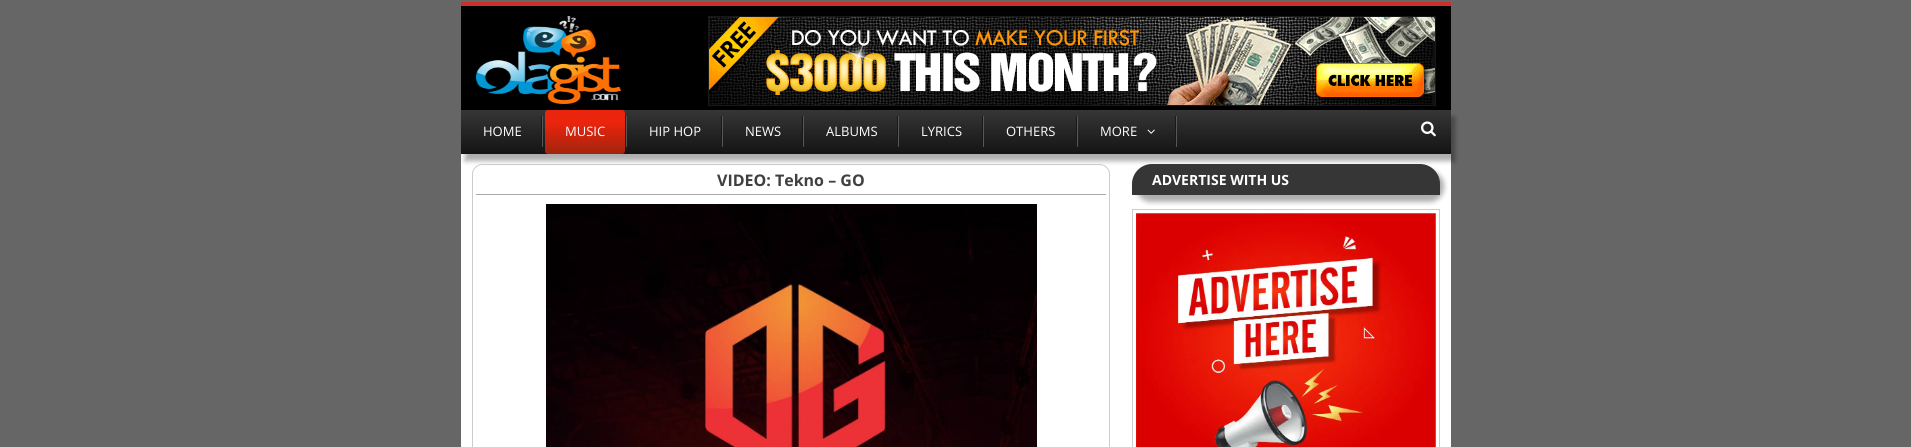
import math
import cairo

surface = cairo.ImageSurface(cairo.Format.RGB24, 1911, 447)
ctx = cairo.Context(surface)
options = cairo.FontOptions()
options.set_hint_metrics(cairo.HintMetrics.OFF)
options.set_hint_style(cairo.HintStyle.NONE)
ctx.set_font_options(options)
ctx.set_miter_limit(4)


def ink(r, g, b):
    ctx.set_source_rgb(r / 255, g / 255, b / 255)


def write(x, y, s, family, size, color, bold=False, italic=False):
    ctx.select_font_face(family, cairo.FontSlant.ITALIC if italic else cairo.FontSlant.NORMAL, cairo.FontWeight.BOLD if bold else cairo.FontWeight.NORMAL)
    ctx.set_font_size(size)
    ink(*color)
    ctx.move_to(x, y)
    ctx.show_text(s)


def block(x, y, w, h, *color):
    ink(*color)
    ctx.rectangle(x, y, w, h)
    ctx.fill()


def round_path(x, y, w, h, r):
    ctx.new_sub_path()
    for i, (u, v) in enumerate([(x + w - r, y + h - r), (x + r, y + h - r), (x + r, y + r), (x + w - r, y + r)]):
        ctx.arc(u, v, r, i * math.pi / 2, (i + 1) * math.pi / 2)
    ctx.close_path()


def blur_box(x, y, w, h, r, blur, alpha):
    ctx.push_group_with_content(cairo.Content.ALPHA)
    ctx.set_operator(cairo.Operator.SOURCE)
    for i in range(15, -16, -2):
        e = blur * i / 6
        if min(w, h) + 2 * e > 0:
            ctx.set_source_rgba(0, 0, 0, alpha * math.erfc((i - 1) / 8.5) / 2)
            round_path(x - e, y - e, w + 2 * e, h + 2 * e, max(0, min(r + e + blur * .6, min(w, h) / 2 + e)))
            ctx.fill()
    ctx.mask(ctx.pop_group())


def paste(path, x, y, w, h):
    ctx.save()
    ctx.set_source_surface(cairo.ImageSurface.create_from_png(path), x, y)
    ctx.rectangle(x, y, w, h)
    ctx.fill()
    ctx.restore()


s1 = dict(family="Open Sans", size=13, color=(255, 255, 255))
s2 = dict(family="Open Sans", size=16, color=(64, 64, 64), bold=True)
s3 = dict(family="Open Sans", size=14, color=(255, 255, 255), bold=True)

ink(102, 102, 102)
ctx.paint()
block(461, 6, 990, 104, 0, 0, 0)
block(461, 2, 990, 4, 203, 49, 42)
paste("pic1.png", 476, 16, 145, 88)
paste("pic2.png", 708, 16, 728, 90)
block(461, 154, 990, 293, 255, 255, 255)
ink(0, 0, 0)
blur_box(465, 117, 990, 44, 0, 2.5, 0.32)
gradient = cairo.LinearGradient(956, 110, 956, 154)
gradient.add_color_stop_rgba(0, 0.216, 0.212, 0.212, 1)
gradient.add_color_stop_rgba(1, 0.078, 0.078, 0.078, 1)
ctx.set_source(gradient)
ctx.rectangle(461, 110, 990, 44)
ctx.fill()
paste("pic3.png", 541, 116, 2, 31)
write(483, 136, "HOME", **s1)
paste("pic3.png", 625, 116, 2, 31)
gradient = cairo.LinearGradient(585, 110, 585, 154)
gradient.add_color_stop_rgba(0.3, 0.918, 0.141, 0.051, 1)
gradient.add_color_stop_rgba(1, 0.635, 0.141, 0.051, 1)
ctx.set_source(gradient)
round_path(545, 110, 80, 44, 3)
ctx.fill()
write(565, 136, "MUSIC", **s1)
paste("pic3.png", 721, 116, 2, 31)
write(649, 136, "HIP HOP", **s1)
paste("pic3.png", 802, 116, 2, 31)
write(745, 136, "NEWS", **s1)
paste("pic3.png", 897, 116, 2, 31)
write(826, 136, "ALBUMS", **s1)
paste("pic3.png", 982, 116, 2, 31)
write(921, 136, "LYRICS", **s1)
paste("pic3.png", 1076, 116, 2, 31)
write(1006, 136, "OTHERS", **s1)
paste("pic3.png", 1175, 116, 2, 31)
write(1100, 136, "MORE", **s1)
paste("pic4.png", 1147, 129, 8, 5)
paste("pic5.png", 1421, 121, 15, 16)
ctx.new_path()
ctx.move_to(482, 164.5)
ctx.line_to(1100, 164.5)
ctx.curve_to(1105, 164.5, 1109.5, 169, 1109.5, 174)
ctx.line_to(1109.5, 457.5)
ctx.line_to(472.5, 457.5)
ctx.line_to(472.5, 174)
ctx.curve_to(472.5, 169, 477, 164.5, 482, 164.5)
ctx.close_path()
ink(204, 204, 204)
ctx.set_line_width(1)
ctx.stroke()
write(717, 186, "VIDEO: Tekno – GO", **s2)
block(476, 194, 630, 1, 170, 170, 170)
paste("pic6.png", 546, 204, 491, 243)
ink(0, 0, 0)
blur_box(1136, 171, 308, 31, 20, 2.5, 0.32)
ink(55, 54, 54)
ctx.new_path()
ctx.move_to(1152, 164)
ctx.line_to(1420, 164)
ctx.curve_to(1431, 164, 1440, 173, 1440, 184)
ctx.line_to(1440, 195)
ctx.line_to(1132, 195)
ctx.line_to(1132, 184)
ctx.curve_to(1132, 173, 1141, 164, 1152, 164)
ctx.close_path()
ctx.fill()
write(1152, 185, "ADVERTISE WITH US", **s3)
ctx.rectangle(1132.5, 209.5, 307, 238)
ink(204, 204, 204)
ctx.stroke()
paste("pic7.png", 1136, 213, 300, 234)
surface.write_to_png("screenshot.png")
